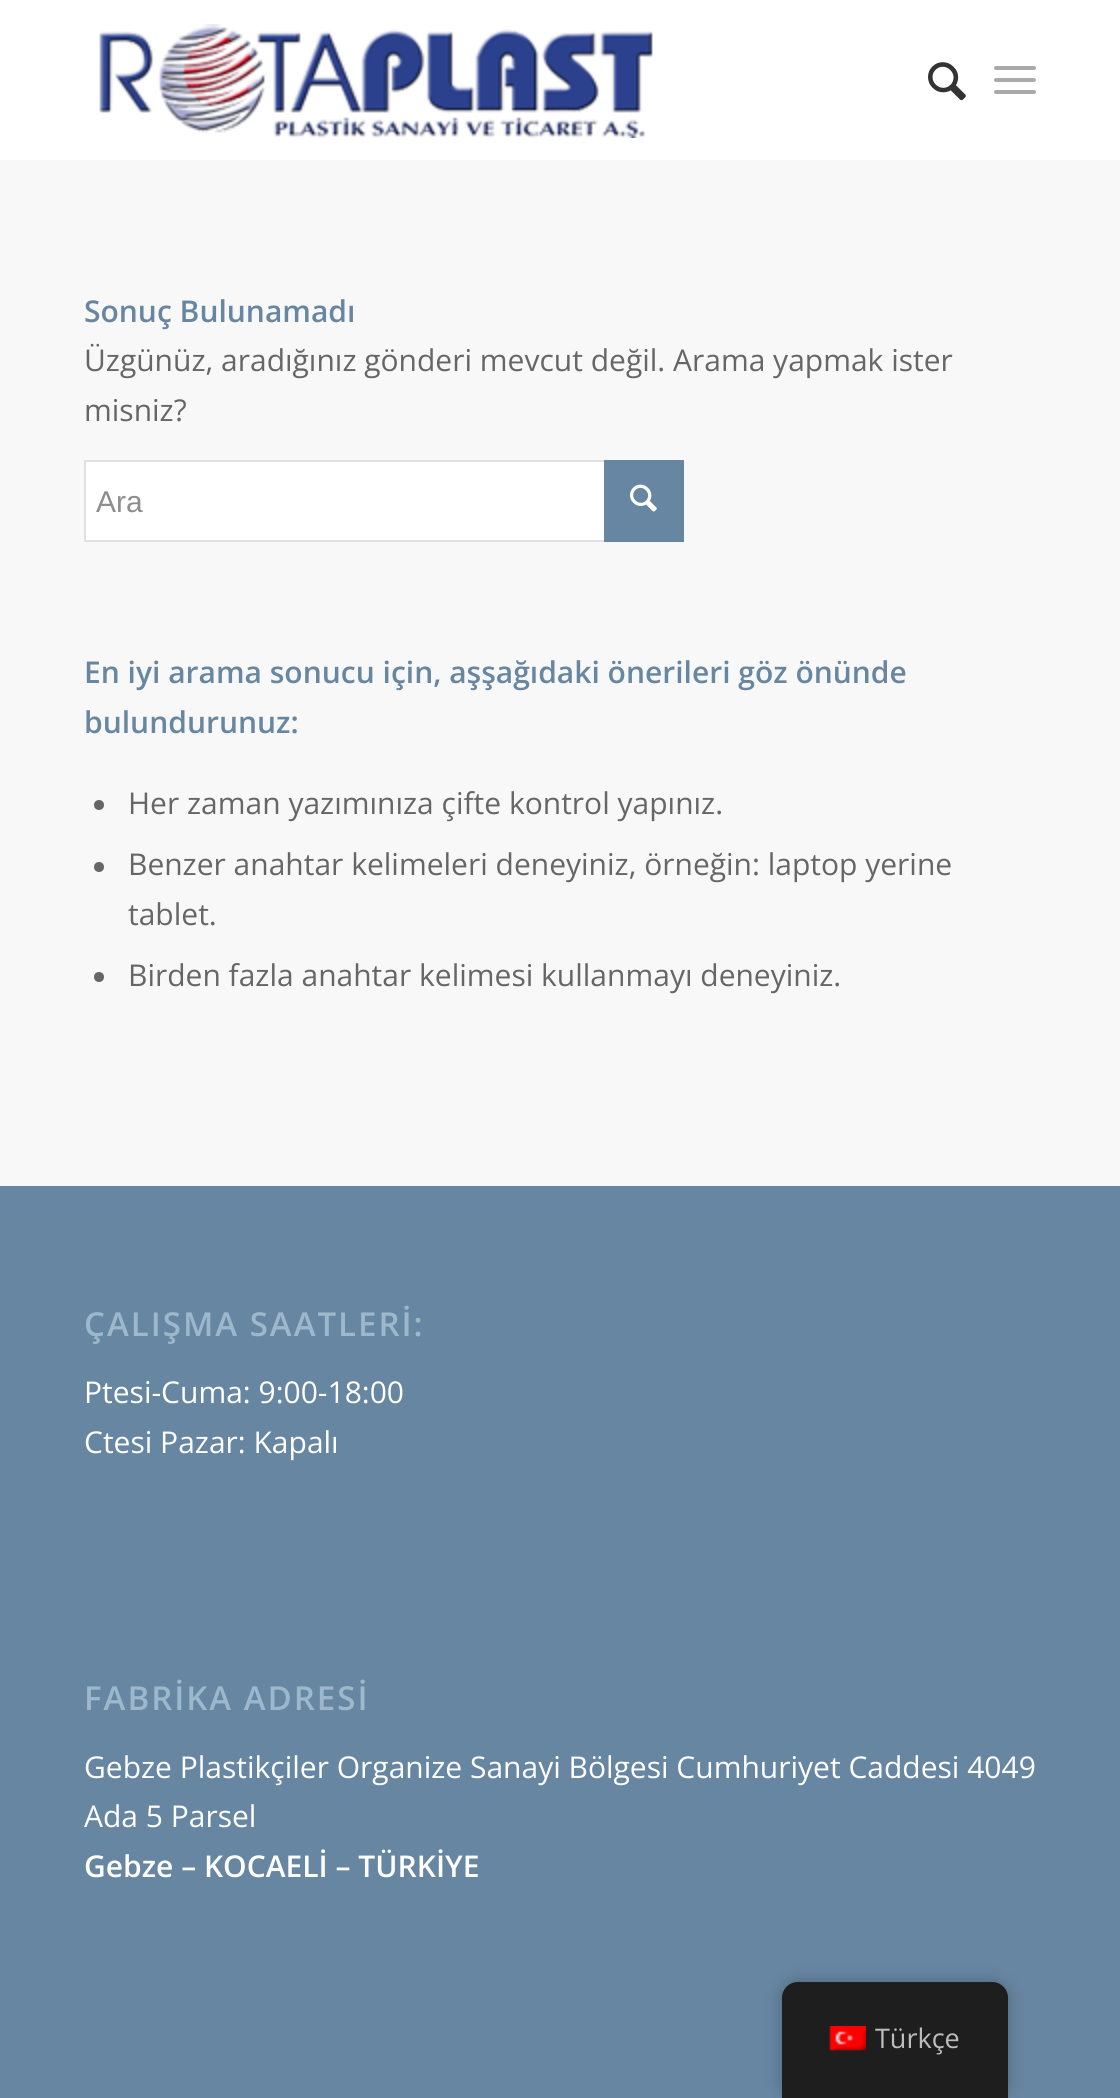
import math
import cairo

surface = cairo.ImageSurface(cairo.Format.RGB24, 1120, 2098)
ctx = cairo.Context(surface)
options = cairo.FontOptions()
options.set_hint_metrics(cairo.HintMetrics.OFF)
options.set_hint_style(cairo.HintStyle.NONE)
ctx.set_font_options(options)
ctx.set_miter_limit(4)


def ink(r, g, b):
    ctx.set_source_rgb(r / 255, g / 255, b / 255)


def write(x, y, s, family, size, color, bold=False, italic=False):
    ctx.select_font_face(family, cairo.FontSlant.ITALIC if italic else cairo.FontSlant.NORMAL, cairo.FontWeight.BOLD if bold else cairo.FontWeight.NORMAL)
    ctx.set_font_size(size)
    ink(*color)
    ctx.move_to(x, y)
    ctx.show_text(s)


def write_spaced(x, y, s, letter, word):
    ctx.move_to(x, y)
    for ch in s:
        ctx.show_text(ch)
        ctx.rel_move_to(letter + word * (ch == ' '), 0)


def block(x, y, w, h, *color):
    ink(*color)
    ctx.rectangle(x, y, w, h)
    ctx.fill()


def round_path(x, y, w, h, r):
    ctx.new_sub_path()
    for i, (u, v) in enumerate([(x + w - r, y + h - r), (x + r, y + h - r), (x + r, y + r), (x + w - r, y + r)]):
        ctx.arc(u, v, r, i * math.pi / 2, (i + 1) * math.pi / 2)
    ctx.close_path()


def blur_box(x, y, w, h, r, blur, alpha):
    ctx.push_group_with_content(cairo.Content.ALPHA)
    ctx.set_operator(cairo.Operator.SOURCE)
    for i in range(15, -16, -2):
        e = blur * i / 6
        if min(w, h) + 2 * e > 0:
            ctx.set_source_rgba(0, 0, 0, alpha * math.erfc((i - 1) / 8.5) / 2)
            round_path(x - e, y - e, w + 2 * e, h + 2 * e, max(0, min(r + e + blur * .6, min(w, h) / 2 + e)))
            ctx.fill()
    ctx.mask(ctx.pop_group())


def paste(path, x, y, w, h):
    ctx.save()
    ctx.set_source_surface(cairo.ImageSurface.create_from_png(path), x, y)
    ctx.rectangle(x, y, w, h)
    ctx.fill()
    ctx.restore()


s1 = dict(family="Open Sans SemiBold", size=30, color=(103, 134, 161))
s2 = dict(family="Open Sans", size=30, color=(102, 102, 102))
s3 = dict(family="Liberation Sans", size=30, color=(141, 141, 141))
s4 = dict(family="Open Sans", size=30, color=(255, 255, 255))
s5 = dict(family="Open Sans SemiBold", size=30, color=(255, 255, 255))
s6 = dict(family="Open Sans", size=27, color=(189, 189, 189))

ink(248, 248, 248)
ctx.paint()
block(0, 0, 1120, 160, 255, 255, 255)
paste("pic1.png", 99, 24, 554, 114)
paste("pic2.png", 928, 62, 38, 39)
ink(170, 170, 170)
round_path(994, 78, 42, 4, 2)
ctx.fill()
round_path(994, 66, 42, 4, 2)
ctx.fill()
round_path(994, 90, 42, 4, 2)
ctx.fill()
write(84, 322, "Sonuç Bulunamadı", **s1)
write(84, 371, "Üzgünüz, aradığınız gönderi mevcut değil. Arama yapmak ister", **s2)
write(84, 421, "misniz?", **s2)
block(86, 462, 518, 78, 255, 255, 255)
ctx.rectangle(85, 461, 598, 80)
ink(225, 225, 225)
ctx.stroke()
write(96, 512, "Ara", **s3)
block(604, 460, 80, 82, 103, 134, 161)
paste("pic3.png", 630, 484, 27, 28)
write(84, 683, "En iyi arama sonucu için, aşşağıdaki önerileri göz önünde", **s1)
write(84, 733, "bulundurunuz:", **s1)
ink(102, 102, 102)
ctx.new_path()
ctx.arc(99, 805, 5, 0, 2 * math.pi)
ctx.fill()
write(128, 814, "Her zaman yazımınıza çifte kontrol yapınız.", **s2)
ctx.new_path()
ctx.arc(99, 867, 5, 0, 2 * math.pi)
ctx.fill()
write(128, 875, "Benzer anahtar kelimeleri deneyiniz, örneğin: laptop yerine", **s2)
write(128, 925, "tablet.", **s2)
ctx.new_path()
ctx.arc(99, 977, 5, 0, 2 * math.pi)
ctx.fill()
write(128, 986, "Birden fazla anahtar kelimesi kullanmayı deneyiniz.", **s2)
block(0, 1186, 1120, 912, 103, 134, 161)
ctx.select_font_face("Open Sans SemiBold")
ctx.set_font_size(33)
ink(157, 184, 204)
write_spaced(84, 1336, "ÇALIŞMA SAATLERİ:", 2, 0)
write(84, 1403, "Ptesi-Cuma: 9:00-18:00", **s4)
write(84, 1453, "Ctesi Pazar: Kapalı", **s4)
ctx.select_font_face("Open Sans SemiBold")
ctx.set_font_size(33)
ink(157, 184, 204)
write_spaced(84, 1710, "FABRİKA ADRESİ", 2, 0)
write(84, 1778, "Gebze Plastikçiler Organize Sanayi Bölgesi Cumhuriyet Caddesi 4049", **s4)
write(84, 1827, "Ada 5 Parsel", **s4)
write(84, 1877, "Gebze – KOCAELİ – TÜRKİYE", **s5)
ink(0, 0, 0)
blur_box(782, 1982, 226, 116, 16, 8, 0.25)
ink(30, 30, 30)
ctx.new_path()
ctx.move_to(798, 1982)
ctx.line_to(992, 1982)
ctx.curve_to(1001, 1982, 1008, 1989, 1008, 1998)
ctx.line_to(1008, 2098)
ctx.line_to(782, 2098)
ctx.line_to(782, 1998)
ctx.curve_to(782, 1989, 789, 1982, 798, 1982)
ctx.close_path()
ctx.fill()
paste("pic4.png", 829, 2026, 37, 25)
write(875, 2048, "Türkçe", **s6)
surface.write_to_png("screenshot.png")
